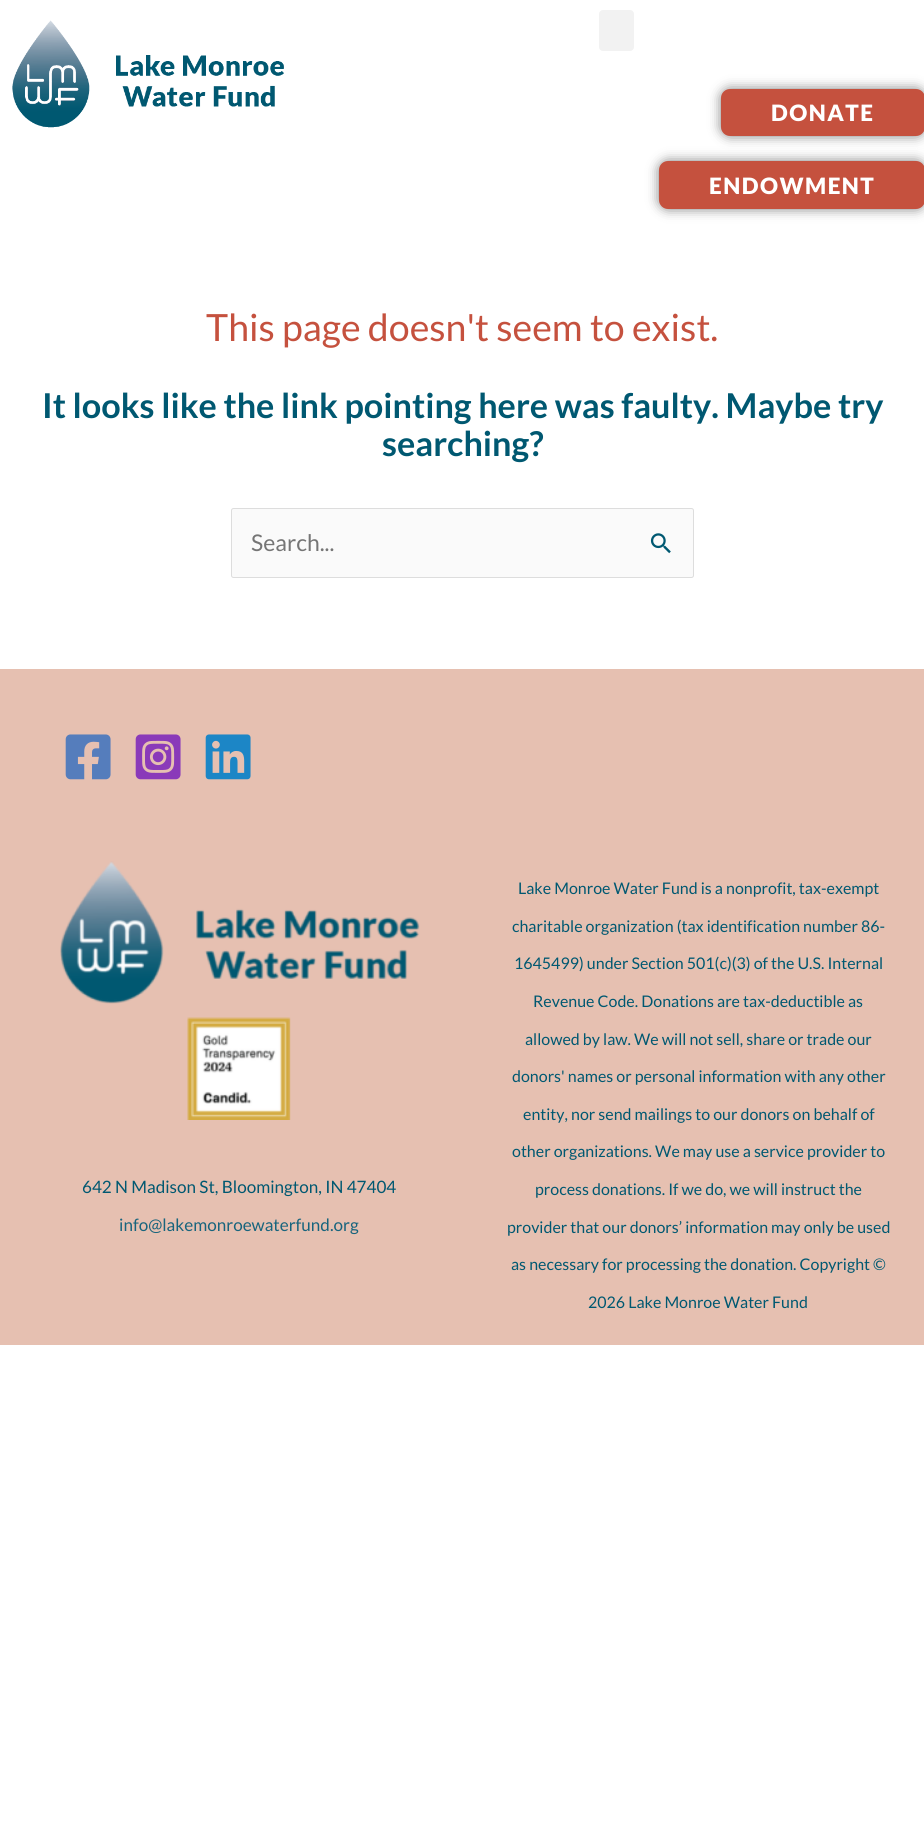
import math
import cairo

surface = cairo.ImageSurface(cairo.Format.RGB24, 924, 1830)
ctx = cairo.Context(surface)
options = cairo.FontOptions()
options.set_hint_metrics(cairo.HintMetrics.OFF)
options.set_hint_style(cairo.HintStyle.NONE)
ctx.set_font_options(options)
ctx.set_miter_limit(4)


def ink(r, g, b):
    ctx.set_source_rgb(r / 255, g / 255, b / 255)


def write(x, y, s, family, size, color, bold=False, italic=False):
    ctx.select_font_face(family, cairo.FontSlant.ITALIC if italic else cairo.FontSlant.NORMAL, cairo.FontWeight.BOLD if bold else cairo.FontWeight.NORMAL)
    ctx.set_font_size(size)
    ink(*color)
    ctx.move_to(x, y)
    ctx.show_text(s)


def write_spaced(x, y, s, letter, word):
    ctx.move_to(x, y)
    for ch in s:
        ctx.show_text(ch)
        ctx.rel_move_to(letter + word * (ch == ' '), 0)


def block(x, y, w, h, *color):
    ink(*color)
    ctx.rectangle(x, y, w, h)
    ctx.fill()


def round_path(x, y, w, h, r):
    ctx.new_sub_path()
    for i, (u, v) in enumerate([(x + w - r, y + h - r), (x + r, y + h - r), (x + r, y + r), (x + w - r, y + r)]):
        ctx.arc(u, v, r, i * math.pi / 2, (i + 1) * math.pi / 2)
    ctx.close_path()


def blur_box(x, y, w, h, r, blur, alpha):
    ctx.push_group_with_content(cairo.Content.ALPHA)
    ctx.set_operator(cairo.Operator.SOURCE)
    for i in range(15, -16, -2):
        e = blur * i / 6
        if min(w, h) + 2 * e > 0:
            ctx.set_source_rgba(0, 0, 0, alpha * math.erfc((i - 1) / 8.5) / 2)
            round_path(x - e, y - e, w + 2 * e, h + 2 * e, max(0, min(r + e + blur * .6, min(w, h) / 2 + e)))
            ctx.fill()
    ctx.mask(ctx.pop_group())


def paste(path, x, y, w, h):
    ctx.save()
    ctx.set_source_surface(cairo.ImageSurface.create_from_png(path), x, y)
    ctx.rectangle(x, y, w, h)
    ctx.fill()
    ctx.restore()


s1 = dict(family="Lato", size=37.5, color=(197, 81, 62))
s2 = dict(family="Lato", size=34.2, color=(0, 88, 113), bold=True)
s3 = dict(family="Lato", size=23, color=(117, 117, 117))
s4 = dict(family="Lato", size=17.1, color=(0, 88, 113))
s5 = dict(family="Lato", size=17.1, color=(24, 100, 125))
s6 = dict(family="Lato", size=16, color=(0, 88, 113))

ink(255, 255, 255)
ctx.paint()
paste("pic1.png", 12, 20, 272, 108)
ink(242, 242, 242)
round_path(599, 10, 35, 41, 4)
ctx.fill()
ink(0, 0, 0)
blur_box(721, 89, 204, 47, 9, 6, 0.5)
ink(197, 81, 62)
round_path(721, 89, 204, 47, 9)
ctx.fill()
ctx.select_font_face("Lato Black")
ctx.set_font_size(22.5)
ink(255, 255, 255)
write_spaced(771, 121, "DONATE", 1.5, 0)
ink(0, 0, 0)
blur_box(659, 161, 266, 48, 9, 6, 0.5)
ink(197, 81, 62)
round_path(659, 161, 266, 48, 9)
ctx.fill()
ink(255, 255, 255)
write_spaced(709, 194, "ENDOWMENT", 1.5, 0)
write(206, 341, "This page doesn't seem to exist.", **s1)
write(42, 418, "It looks like the link pointing here was faulty. Maybe try", **s2)
write(382, 456, "searching?", **s2)
ink(250, 250, 250)
round_path(231.5, 508.5, 462, 69, 2)
ctx.fill_preserve()
ink(221, 221, 221)
ctx.set_line_width(1)
ctx.stroke()
write(251, 551, "Search...", **s3)
paste("pic2.png", 650, 533, 21, 21)
block(0, 669, 924, 676, 230, 192, 177)
paste("pic3.png", 65, 734, 46, 46)
paste("pic4.png", 135, 734, 46, 46)
paste("pic5.png", 205, 734, 46, 46)
paste("pic6.png", 60, 861, 360, 259)
write(82, 1193, "642 N Madison St, Bloomington, IN 47404", **s4)
write(119, 1231, "info@lakemonroewaterfund.org", **s5)
write(518, 894, "Lake Monroe Water Fund is a nonprofit, tax-exempt", **s6)
write(512, 932, "charitable organization (tax identification number 86-", **s6)
write(514, 969, "1645499) under Section 501(c)(3) of the U.S. Internal", **s6)
write(533, 1007, "Revenue Code. Donations are tax-deductible as", **s6)
write(525, 1045, "allowed by law. We will not sell, share or trade our", **s6)
write(512, 1082, "donors' names or personal information with any other", **s6)
write(523, 1120, "entity, nor send mailings to our donors on behalf of", **s6)
write(512, 1157, "other organizations. We may use a service provider to", **s6)
write(535, 1195, "process donations. If we do, we will instruct the", **s6)
write(507, 1233, "provider that our donors’ information may only be used", **s6)
write(511, 1270, "as necessary for processing the donation. Copyright ©", **s6)
write(588, 1308, "2026 Lake Monroe Water Fund", **s6)
surface.write_to_png("screenshot.png")
